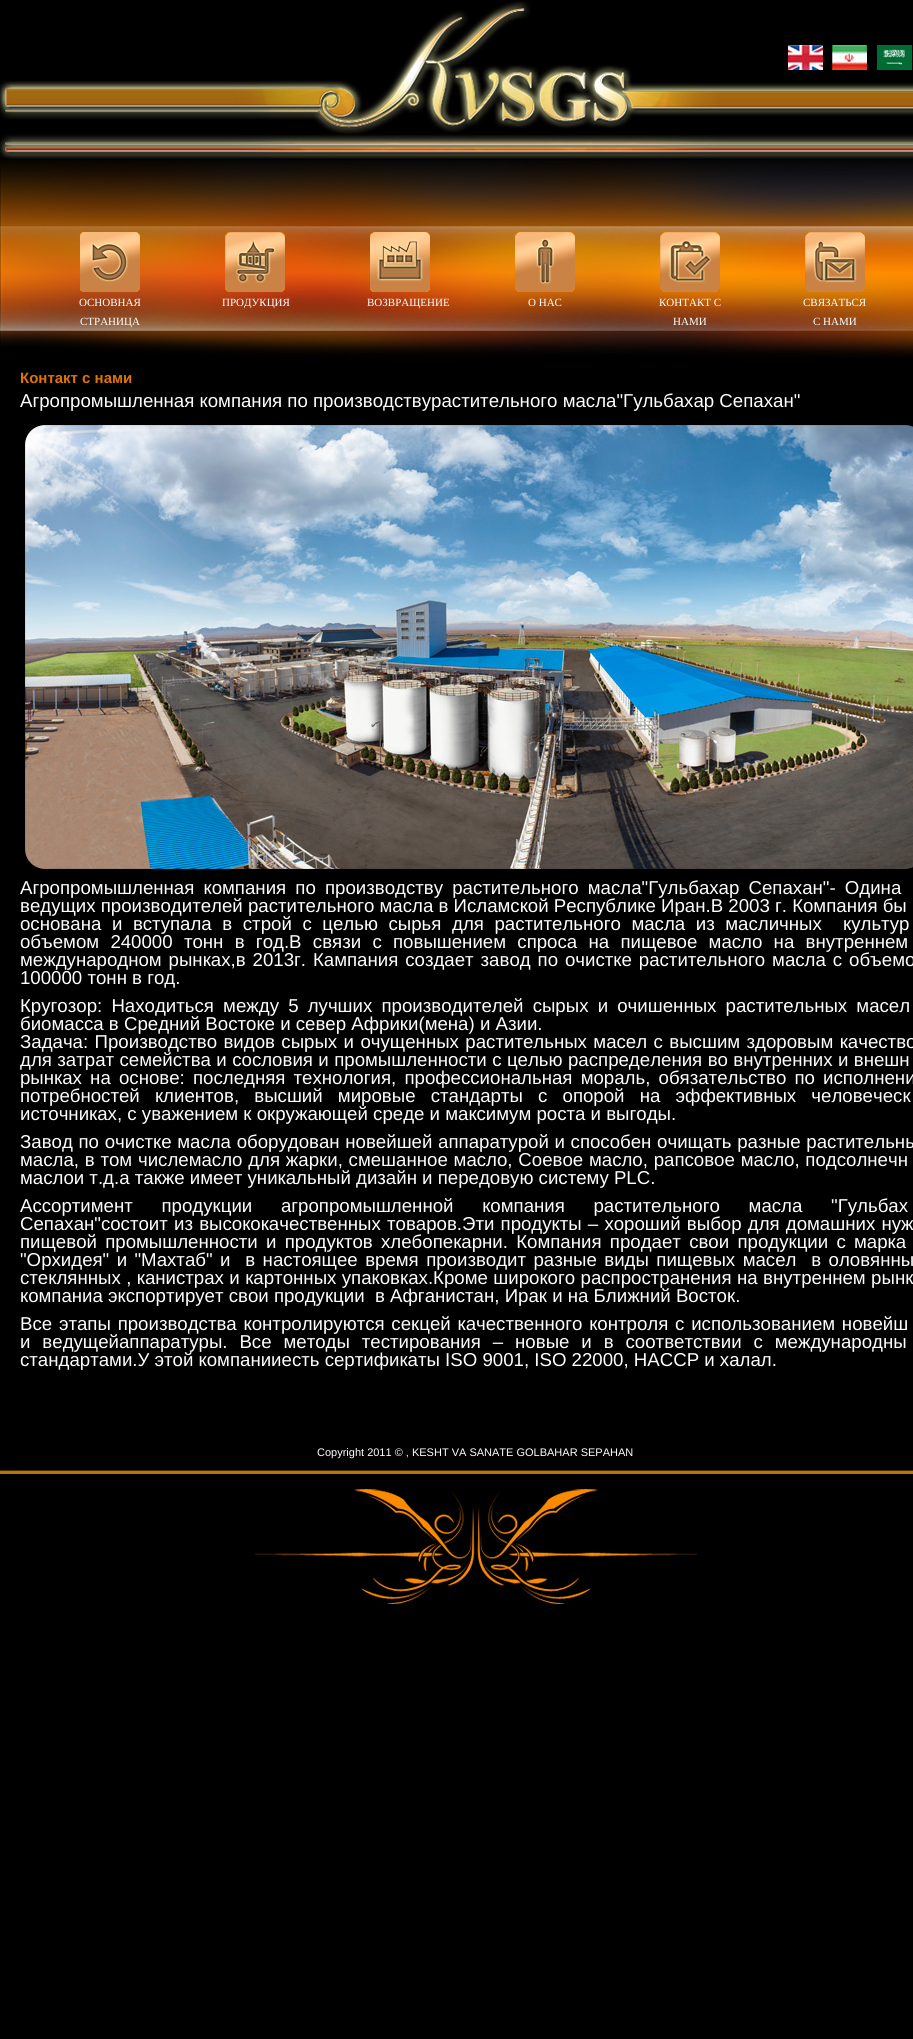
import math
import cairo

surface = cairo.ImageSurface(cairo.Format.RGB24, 913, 2039)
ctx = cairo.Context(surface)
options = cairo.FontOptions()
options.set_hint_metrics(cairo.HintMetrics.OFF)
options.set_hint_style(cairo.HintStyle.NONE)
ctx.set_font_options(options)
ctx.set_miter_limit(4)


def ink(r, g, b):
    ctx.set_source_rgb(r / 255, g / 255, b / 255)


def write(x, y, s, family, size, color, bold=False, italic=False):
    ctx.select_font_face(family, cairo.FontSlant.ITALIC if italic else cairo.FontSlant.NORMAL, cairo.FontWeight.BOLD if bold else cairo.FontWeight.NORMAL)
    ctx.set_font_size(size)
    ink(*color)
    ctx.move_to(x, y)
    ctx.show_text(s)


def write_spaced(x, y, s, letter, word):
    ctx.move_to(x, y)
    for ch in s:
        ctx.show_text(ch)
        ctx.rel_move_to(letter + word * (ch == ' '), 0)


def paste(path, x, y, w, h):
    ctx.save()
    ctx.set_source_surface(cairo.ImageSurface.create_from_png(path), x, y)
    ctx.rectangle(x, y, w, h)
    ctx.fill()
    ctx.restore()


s1 = dict(family="Liberation Serif", size=11, color=(255, 255, 255))
s2 = dict(family="Liberation Sans", size=15, color=(223, 116, 0), bold=True)
s3 = dict(family="Liberation Sans", size=18.65, color=(255, 255, 255))
s4 = dict(family="Liberation Sans", size=11, color=(255, 255, 255))

ink(0, 0, 0)
ctx.paint()
paste("pic1.png", 0, 1, 913, 158)
paste("pic2.png", 788, 45, 35, 25)
paste("pic3.png", 832, 45, 35, 25)
paste("pic4.png", 877, 45, 35, 25)
paste("pic5.png", 0, 160, 913, 198)
paste("pic6.png", 80, 232, 60, 60)
write(79, 306, "ОСНОВНАЯ", **s1)
write(80, 325, "СТРАНИЦА", **s1)
paste("pic7.png", 225, 232, 60, 60)
write(222, 306, "ПРОДУКЦИЯ", **s1)
paste("pic8.png", 370, 232, 60, 60)
write(367, 306, "ВОЗВРАЩЕНИЕ", **s1)
paste("pic9.png", 515, 232, 60, 60)
write(528, 306, "О НАС", **s1)
paste("pic10.png", 660, 232, 60, 60)
write(659, 306, "КОНТАКТ С", **s1)
write(673, 325, "НАМИ", **s1)
paste("pic11.png", 805, 232, 60, 60)
write(803, 306, "СВЯЗАТЬСЯ", **s1)
write(813, 325, "С НАМИ", **s1)
write(20, 383, "Контакт с нами", **s2)
write(20, 407, "Агропромышленная компания по производствурастительного масла\"Гульбахар Сепахан\"", **s3)
paste("pic12.png", 25, 425, 888, 444)
write_spaced(20, 894, "Агропромышленная компания по производству растительного масла\"Гульбахар Сепахан\"- Одина", 0, 4)
write(20, 912, "ведущих производителей растительного масла в Исламской Республике Иран.В 2003 г. Компания бы", **s3)
write_spaced(20, 930, "основана и вступала в строй с целью сырья для растительного масла из масличных  культур", 0, 5.4)
write_spaced(20, 948, "объемом 240000 тонн в год.В связи с повышением спроса на пищевое масло на внутреннем", 0, 6.1)
write_spaced(20, 966, "международном рынках,в 2013г. Кампания создает завод по очистке растительного масла с объемо", 0, 1.75)
write(20, 984, "100000 тонн в год.", **s3)
write_spaced(20, 1012, "Кругозор: Находиться между 5 лучших производителей сырых и очишенных растительных масел", 0, 4)
write(20, 1030, "биомасса в Средний Востоке и север Африки(мена) и Азии.", **s3)
write_spaced(20, 1048, "Задача: Производство видов сырых и очущенных растительных масел с высшим здоровым качество", 0, 1.25)
write_spaced(20, 1066, "для затрат семейства и сословия и промышленности с целью распределения во внутренних и внешн", 0, 0.25)
write_spaced(20, 1084, "рынках на основе: последняя технология, профессиональная мораль, обязательство по исполнени", 0, 3)
write_spaced(20, 1102, "потребностей клиентов, высший мировые стандарты с опорой на эффективных человеческ", 0, 10)
write(20, 1120, "источниках, с уважением к окружающей среде и максимум роста и выгоды.", **s3)
write_spaced(20, 1148, "Завод по очистке масла оборудован новейшей аппаратурой и способен очищать разные растительны", 0, 0.5)
write_spaced(20, 1166, "масла, в том числемасло для жарки, смешанное масло, Соевое масло, рапсовое масло, подсолнечн", 0, 0.6)
write(20, 1184, "маслои т.д.а также имеет уникальный дизайн и передовую систему PLC.", **s3)
write_spaced(20, 1212, "Ассортимент продукции агропромышленной компания растительного масла \"Гульбах", 0, 23.5)
write_spaced(20, 1230, "Сепахан\"состоит из высококачественных товаров.Эти продукты – хороший выбор для домашних нуж", 0, 1)
write_spaced(20, 1248, "пищевой промышленности и продуктов хлебопекарни. Компания продает свои продукции с марка", 0, 3.1)
write_spaced(20, 1266, "\"Орхидея\" и \"Махтаб\" и  в настоящее время производит разные виды пищевых масел  в оловянны", 0, 2.25)
write_spaced(20, 1284, "стеклянных , канистрах и картонных упаковках.Кроме широкого распространения на внутреннем рынк", 0, 0.25)
write(20, 1302, "компаниа экспортирует свои продукции  в Афганистан, Ирак и на Ближний Восток.", **s3)
write_spaced(20, 1330, "Все этапы производства контролируются секцей качественного контроля с использованием новейш", 0, 1.6)
write_spaced(20, 1348, "и ведущейаппаратуры. Все методы тестирования – новые и в соответствии с международны", 0, 6.75)
write(20, 1366, "стандартами.У этой компанииесть сертификаты ISO 9001, ISO 22000, HACCP и халал.", **s3)
write(317, 1456, "Copyright 2011 © , KESHT VA SANATE GOLBAHAR SEPAHAN", **s4)
paste("pic13.png", 0, 1470, 913, 136)
surface.write_to_png("screenshot.png")
